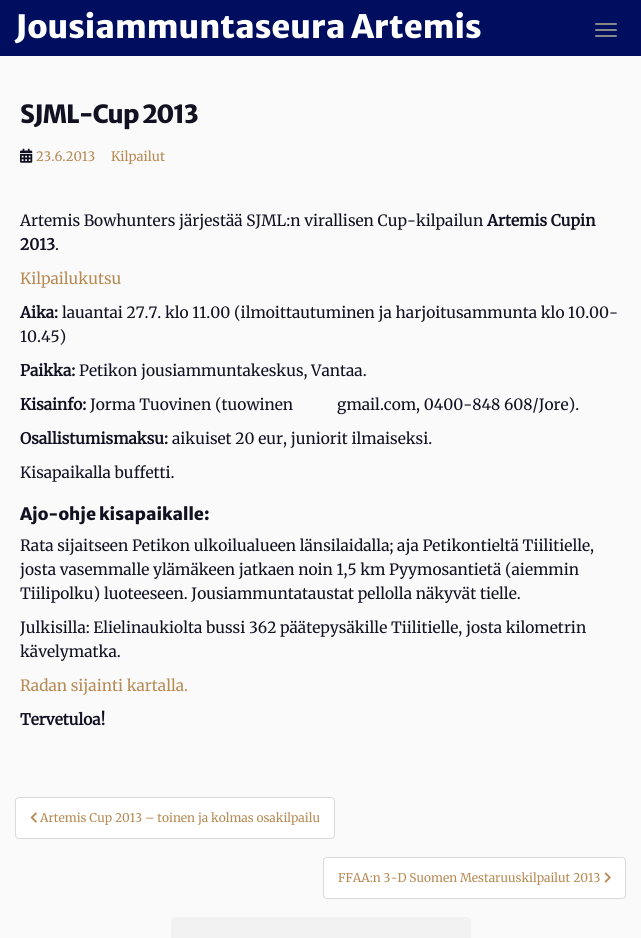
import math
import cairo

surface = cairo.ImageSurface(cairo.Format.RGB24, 641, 938)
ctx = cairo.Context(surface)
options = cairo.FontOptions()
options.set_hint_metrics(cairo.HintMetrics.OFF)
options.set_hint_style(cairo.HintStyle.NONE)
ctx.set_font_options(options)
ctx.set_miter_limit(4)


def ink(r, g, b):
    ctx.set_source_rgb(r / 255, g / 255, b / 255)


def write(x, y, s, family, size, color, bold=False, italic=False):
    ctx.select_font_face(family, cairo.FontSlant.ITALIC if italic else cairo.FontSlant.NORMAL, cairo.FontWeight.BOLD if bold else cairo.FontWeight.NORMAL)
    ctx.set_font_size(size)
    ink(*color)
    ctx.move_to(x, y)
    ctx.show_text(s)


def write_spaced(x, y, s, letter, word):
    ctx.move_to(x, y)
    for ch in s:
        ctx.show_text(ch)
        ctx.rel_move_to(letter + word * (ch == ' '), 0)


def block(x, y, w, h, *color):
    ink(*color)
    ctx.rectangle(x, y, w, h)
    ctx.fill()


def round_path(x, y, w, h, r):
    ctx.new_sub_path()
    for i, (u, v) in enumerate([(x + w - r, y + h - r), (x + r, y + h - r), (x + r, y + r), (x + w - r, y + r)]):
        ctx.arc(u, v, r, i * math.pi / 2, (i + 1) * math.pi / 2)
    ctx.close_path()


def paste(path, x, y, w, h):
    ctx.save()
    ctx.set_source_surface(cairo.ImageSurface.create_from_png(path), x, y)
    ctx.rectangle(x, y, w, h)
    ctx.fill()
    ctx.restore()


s1 = dict(family="Merriweather Sans ExtraBold", size=32, color=(255, 255, 255))
s2 = dict(family="Merriweather Light", size=13, color=(183, 139, 86))
s3 = dict(family="Merriweather Light", size=15.5, color=(17, 17, 34))
s4 = dict(family="Merriweather", size=15.5, color=(17, 17, 34), bold=True)
s5 = dict(family="Merriweather Light", size=15.5, color=(183, 139, 86))
s6 = dict(family="Merriweather Sans ExtraBold", size=17, color=(17, 17, 34))
s7 = dict(family="Merriweather Light", size=12, color=(183, 139, 86))

ink(250, 250, 250)
ctx.paint()
block(0, 0, 641, 56, 0, 14, 96)
write(15, 38, "Jousiammuntaseura Artemis", **s1)
ink(136, 136, 136)
round_path(595, 23, 22, 2, 1)
ctx.fill()
round_path(595, 29, 22, 2, 1)
ctx.fill()
round_path(595, 35, 22, 2, 1)
ctx.fill()
ctx.set_font_size(25)
ink(17, 17, 34)
write_spaced(20, 123, "SJML-Cup 2013", -1, 0)
paste("pic1.png", 20, 148, 13, 15)
write(36, 161, "23.6.2013", **s2)
write(111, 161, "Kilpailut", **s2)
write(20, 226, "Artemis Bowhunters järjestää SJML:n virallisen Cup-kilpailun", **s3)
write(487, 226, "Artemis Cupin", **s4)
write(20, 250, "2013", **s4)
write(55, 250, ".", **s3)
write(20, 284, "Kilpailukutsu", **s5)
write(20, 318, "Aika:", **s4)
write(62, 318, "lauantai 27.7. klo 11.00 (ilmoittautuminen ja harjoitusammunta klo 10.00-", **s3)
write(20, 342, "10.45)", **s3)
write(20, 376, "Paikka:", **s4)
write(79, 376, "Petikon jousiammuntakeskus, Vantaa.", **s3)
write(20, 410, "Kisainfo:", **s4)
write(90, 410, "Jorma Tuovinen (tuowinen", **s3)
write(337, 410, "gmail.com, 0400-848 608/Jore).", **s3)
write(20, 444, "Osallistumismaksu:", **s4)
write(172, 444, "aikuiset 20 eur, juniorit ilmaiseksi.", **s3)
write(20, 478, "Kisapaikalla buffetti.", **s3)
write(20, 520, "Ajo-ohje kisapaikalle:", **s6)
write(20, 551, "Rata sijaitseen Petikon ulkoilualueen länsilaidalla; aja Petikontieltä Tiilitielle,", **s3)
write(20, 575, "josta vasemmalle ylämäkeen jatkaen noin 1,5 km Pyymosantietä (aiemmin", **s3)
write(20, 599, "Tiilipolku) luoteeseen. Jousiammuntataustat pellolla näkyvät tielle.", **s3)
write(20, 633, "Julkisilla: Elielinaukiolta bussi 362 päätepysäkille Tiilitielle, josta kilometrin", **s3)
write(20, 657, "kävelymatka.", **s3)
write(20, 691, "Radan sijainti kartalla.", **s5)
write(20, 725, "Tervetuloa!", **s4)
ink(255, 255, 255)
round_path(15.5, 797.5, 319, 41, 3.5)
ctx.fill_preserve()
ink(218, 218, 218)
ctx.set_line_width(1)
ctx.stroke()
paste("pic2.png", 30, 812, 7, 11)
write(40, 822, "Artemis Cup 2013 – toinen ja kolmas osakilpailu", **s7)
ink(255, 255, 255)
round_path(323.5, 857.5, 302, 41, 3.5)
ctx.fill_preserve()
ink(218, 218, 218)
ctx.stroke()
write(338, 882, "FFAA:n 3-D Suomen Mestaruuskilpailut 2013", **s7)
paste("pic3.png", 604, 872, 7, 11)
ink(242, 242, 242)
ctx.new_path()
ctx.move_to(175, 917)
ctx.line_to(467, 917)
ctx.curve_to(469, 917, 471, 919, 471, 921)
ctx.line_to(471, 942)
ctx.line_to(171, 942)
ctx.line_to(171, 921)
ctx.curve_to(171, 919, 173, 917, 175, 917)
ctx.close_path()
ctx.fill()
surface.write_to_png("screenshot.png")
